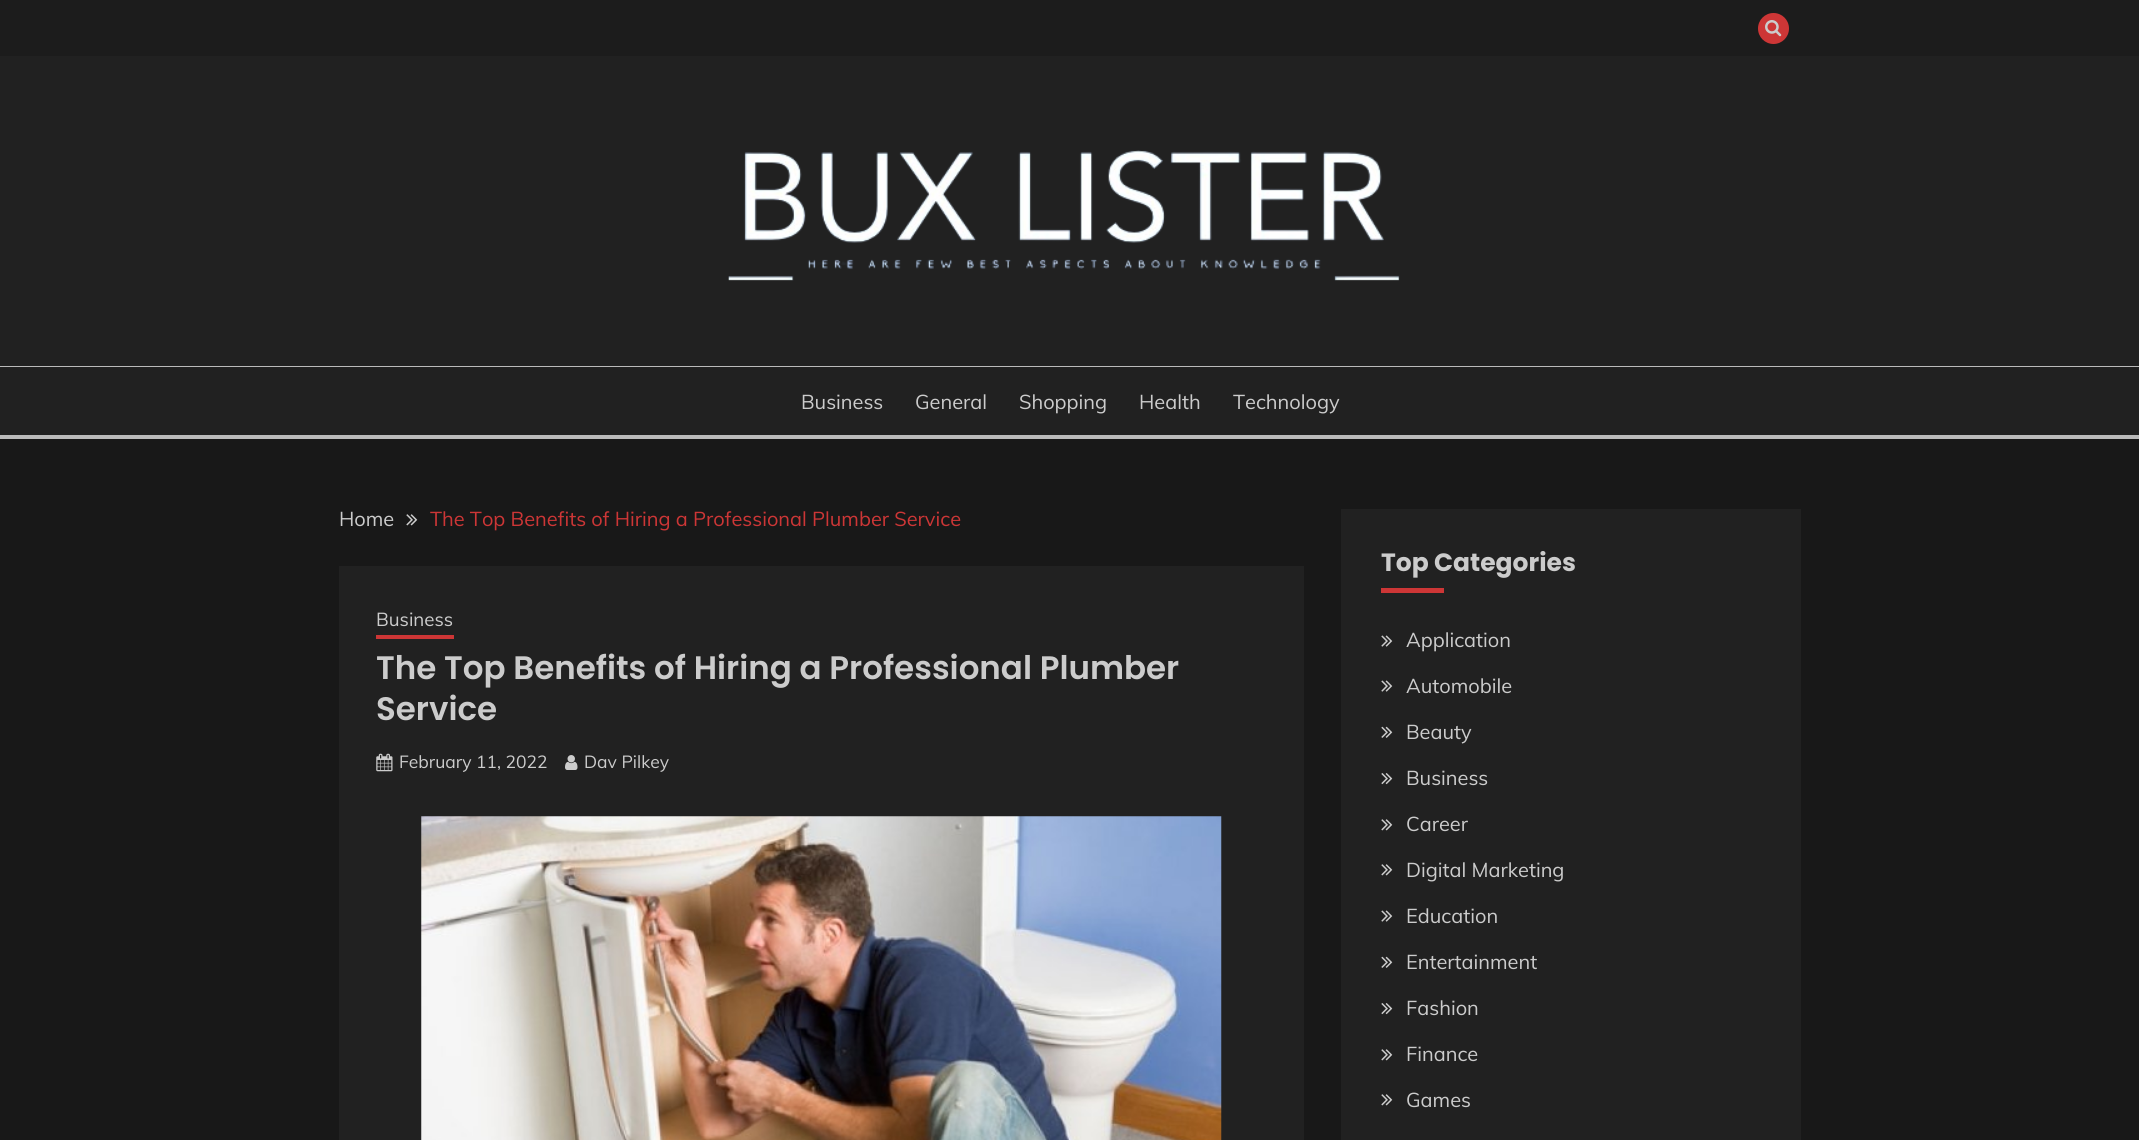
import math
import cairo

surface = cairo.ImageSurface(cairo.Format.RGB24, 2139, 1140)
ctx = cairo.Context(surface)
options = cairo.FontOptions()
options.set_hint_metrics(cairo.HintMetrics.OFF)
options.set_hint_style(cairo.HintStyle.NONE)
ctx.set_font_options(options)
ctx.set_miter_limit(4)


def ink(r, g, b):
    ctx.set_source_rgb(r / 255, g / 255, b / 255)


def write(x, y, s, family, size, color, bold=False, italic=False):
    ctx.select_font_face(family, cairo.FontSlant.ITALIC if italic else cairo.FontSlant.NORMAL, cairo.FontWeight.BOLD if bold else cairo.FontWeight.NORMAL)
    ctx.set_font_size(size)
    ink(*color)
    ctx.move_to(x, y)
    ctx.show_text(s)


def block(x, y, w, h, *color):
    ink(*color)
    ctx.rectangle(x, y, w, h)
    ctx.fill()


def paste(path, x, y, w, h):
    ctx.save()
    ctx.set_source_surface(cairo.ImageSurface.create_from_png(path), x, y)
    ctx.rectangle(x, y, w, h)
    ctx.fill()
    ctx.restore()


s1 = dict(family="Muli", size=20, color=(204, 204, 204))
s2 = dict(family="Muli", size=20, color=(205, 54, 54))
s3 = dict(family="Muli", size=18.75, color=(204, 204, 204))
s4 = dict(family="Poppins SemiBold", size=32.5, color=(204, 204, 204))
s5 = dict(family="Muli", size=17.5, color=(204, 204, 204))
s6 = dict(family="Poppins", size=25, color=(204, 204, 204), bold=True)

ink(24, 24, 24)
ctx.paint()
block(0, 56, 2139, 379, 33, 33, 33)
block(0, 0, 2139, 56, 28, 28, 28)
ink(205, 54, 54)
ctx.arc(1773.5, 28.5, 15.5, 0, 2 * math.pi)
ctx.fill()
paste("pic1.png", 1765, 20, 17, 17)
block(0, 366, 2139, 1, 187, 187, 187)
paste("pic2.png", 728, 150, 672, 131)
block(0, 435, 2139, 4, 187, 187, 187)
write(801, 409, "Business", **s1)
write(915, 409, "General", **s1)
write(1019, 409, "Shopping", **s1)
write(1139, 409, "Health", **s1)
write(1233, 409, "Technology", **s1)
write(339, 526, "Home", **s1)
paste("pic3.png", 406, 514, 12, 12)
write(430, 526, "The Top Benefits of Hiring a Professional Plumber Service", **s2)
block(339, 566, 965, 574, 33, 33, 33)
write(376, 626, "Business", **s3)
block(376, 635, 78, 4, 205, 54, 54)
write(376, 679, "The Top Benefits of Hiring a Professional Plumber", **s4)
write(376, 720, "Service", **s4)
paste("pic4.png", 376, 753, 17, 19)
write(399, 768, "February 11, 2022", **s5)
paste("pic5.png", 565, 755, 13, 15)
write(584, 768, "Dav Pilkey", **s5)
paste("pic6.png", 421, 816, 801, 324)
block(1341, 509, 460, 631, 33, 33, 33)
write(1381, 571, "Top Categories", **s6)
block(1381, 588, 63, 5, 205, 54, 54)
paste("pic7.png", 1381, 635, 12, 12)
write(1406, 647, "Application", **s1)
paste("pic7.png", 1381, 680, 12, 12)
write(1406, 693, "Automobile", **s1)
paste("pic8.png", 1381, 726, 12, 12)
write(1406, 739, "Beauty", **s1)
paste("pic9.png", 1381, 773, 12, 12)
write(1406, 785, "Business", **s1)
paste("pic10.png", 1381, 819, 12, 12)
write(1406, 831, "Career", **s1)
paste("pic10.png", 1381, 864, 12, 12)
write(1406, 877, "Digital Marketing", **s1)
paste("pic7.png", 1381, 910, 12, 12)
write(1406, 923, "Education", **s1)
paste("pic8.png", 1381, 956, 12, 12)
write(1406, 969, "Entertainment", **s1)
paste("pic9.png", 1381, 1003, 12, 12)
write(1406, 1015, "Fashion", **s1)
paste("pic10.png", 1381, 1049, 12, 12)
write(1406, 1061, "Finance", **s1)
paste("pic10.png", 1381, 1094, 12, 12)
write(1406, 1107, "Games", **s1)
surface.write_to_png("screenshot.png")
